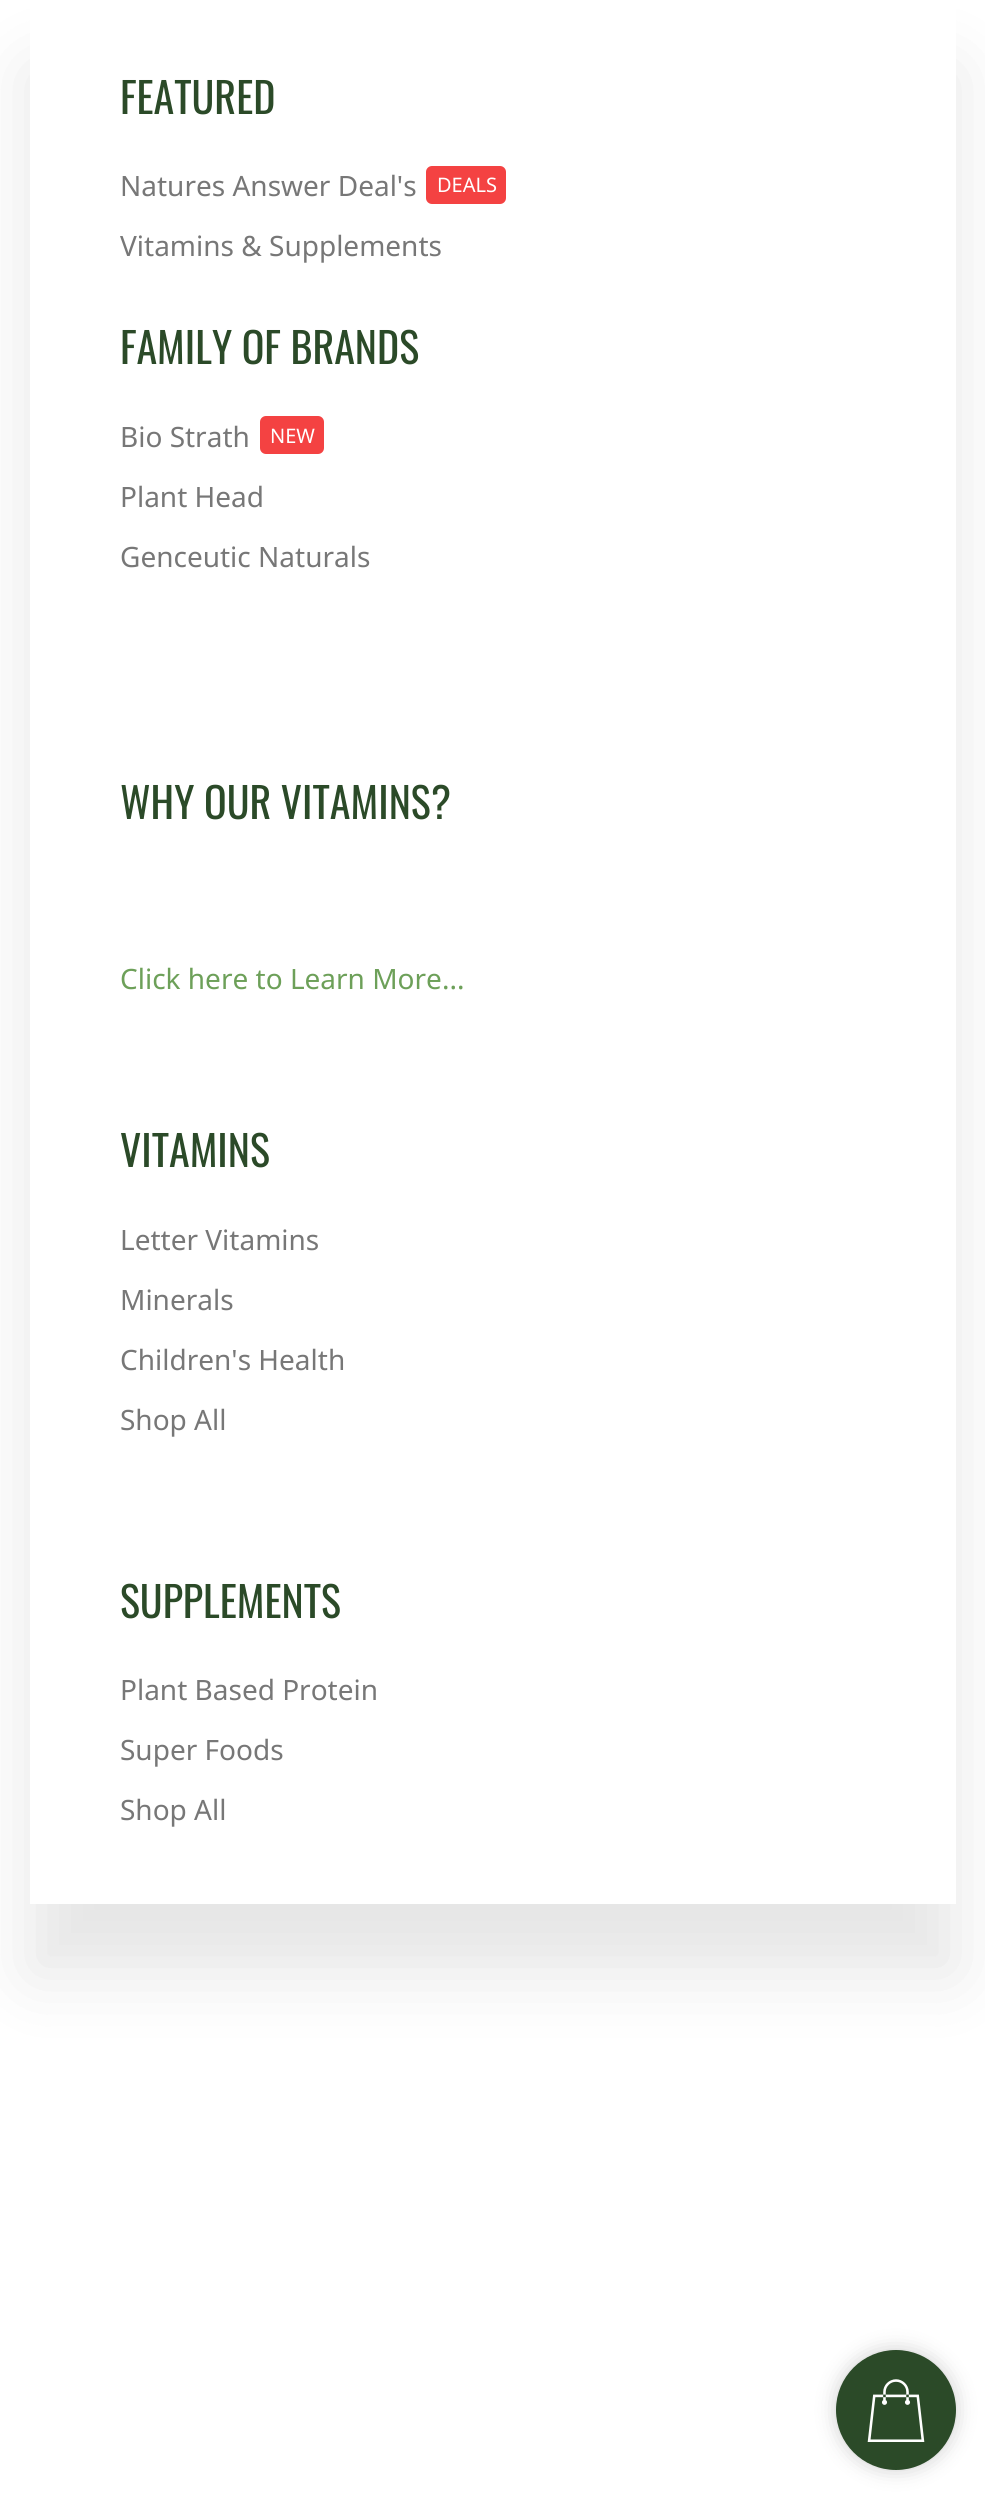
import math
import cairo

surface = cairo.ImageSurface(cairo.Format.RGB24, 985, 2500)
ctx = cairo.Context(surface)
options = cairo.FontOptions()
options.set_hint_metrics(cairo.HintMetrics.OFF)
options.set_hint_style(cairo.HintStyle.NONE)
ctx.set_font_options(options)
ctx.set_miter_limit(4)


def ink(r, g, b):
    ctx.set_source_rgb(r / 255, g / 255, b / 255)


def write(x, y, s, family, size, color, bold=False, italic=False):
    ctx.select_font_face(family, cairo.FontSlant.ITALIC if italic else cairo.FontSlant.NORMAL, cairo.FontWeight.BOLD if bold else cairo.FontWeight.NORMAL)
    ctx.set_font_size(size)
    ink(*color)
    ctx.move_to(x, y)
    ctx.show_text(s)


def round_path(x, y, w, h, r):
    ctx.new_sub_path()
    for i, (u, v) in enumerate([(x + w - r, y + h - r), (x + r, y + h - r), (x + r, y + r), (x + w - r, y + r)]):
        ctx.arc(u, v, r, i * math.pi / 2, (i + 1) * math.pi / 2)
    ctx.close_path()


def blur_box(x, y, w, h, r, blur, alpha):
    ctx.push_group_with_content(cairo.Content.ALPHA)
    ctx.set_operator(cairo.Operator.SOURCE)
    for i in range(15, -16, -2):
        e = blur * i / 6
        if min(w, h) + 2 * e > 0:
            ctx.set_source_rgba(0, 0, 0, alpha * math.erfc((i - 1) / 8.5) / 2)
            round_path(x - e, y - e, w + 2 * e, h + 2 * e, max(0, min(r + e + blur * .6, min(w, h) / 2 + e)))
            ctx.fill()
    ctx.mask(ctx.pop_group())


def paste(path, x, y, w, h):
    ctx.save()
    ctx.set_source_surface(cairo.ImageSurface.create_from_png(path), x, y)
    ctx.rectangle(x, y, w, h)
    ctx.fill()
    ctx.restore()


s1 = dict(family="Oswald", size=42, color=(43, 74, 40))
s2 = dict(family="Noto Sans", size=28, color=(119, 119, 119))
s3 = dict(family="Noto Sans", size=20, color=(255, 255, 255))
s4 = dict(family="Noto Sans", size=28, color=(109, 160, 89))

ink(255, 255, 255)
ctx.paint()
ctx.save()
ctx.set_fill_rule(cairo.FillRule.EVEN_ODD)
ctx.new_path()
ctx.move_to(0, 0)
ctx.line_to(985, 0)
ctx.line_to(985, 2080)
ctx.line_to(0, 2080)
ctx.close_path()
ctx.move_to(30, 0)
ctx.line_to(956, 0)
ctx.line_to(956, 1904)
ctx.line_to(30, 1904)
ctx.close_path()
ctx.clip()
ink(0, 0, 0)
blur_box(30, 70, 926, 1904, 0, 35, 0.1)
ctx.restore()
write(120, 114, "FEATURED", **s1)
write(120, 196, "Natures Answer Deal's", **s2)
ink(244, 66, 66)
round_path(426, 166, 80, 38, 6)
ctx.fill()
write(437, 192, "DEALS", **s3)
write(120, 256, "Vitamins & Supplements", **s2)
write(120, 364, "FAMILY OF BRANDS", **s1)
write(120, 447, "Bio Strath", **s2)
ink(244, 66, 66)
round_path(260, 416, 64, 38, 6)
ctx.fill()
write(270, 443, "NEW", **s3)
write(120, 507, "Plant Head", **s2)
write(120, 567, "Genceutic Naturals", **s2)
write(120, 819, "WHY OUR VITAMINS?", **s1)
write(120, 989, "Click here to Learn More...", **s4)
write(120, 1167, "VITAMINS", **s1)
write(120, 1250, "Letter Vitamins", **s2)
write(120, 1310, "Minerals", **s2)
write(120, 1370, "Children's Health", **s2)
write(120, 1430, "Shop All", **s2)
write(120, 1618, "SUPPLEMENTS", **s1)
write(120, 1700, "Plant Based Protein", **s2)
write(120, 1760, "Super Foods", **s2)
write(120, 1820, "Shop All", **s2)
ink(0, 0, 0)
blur_box(836, 2350, 120, 120, 60, 10, 0.19)
ink(43, 74, 40)
ctx.arc(896, 2410, 60, 0, 2 * math.pi)
ctx.fill()
paste("pic1.png", 867, 2379, 58, 63)
surface.write_to_png("screenshot.png")
